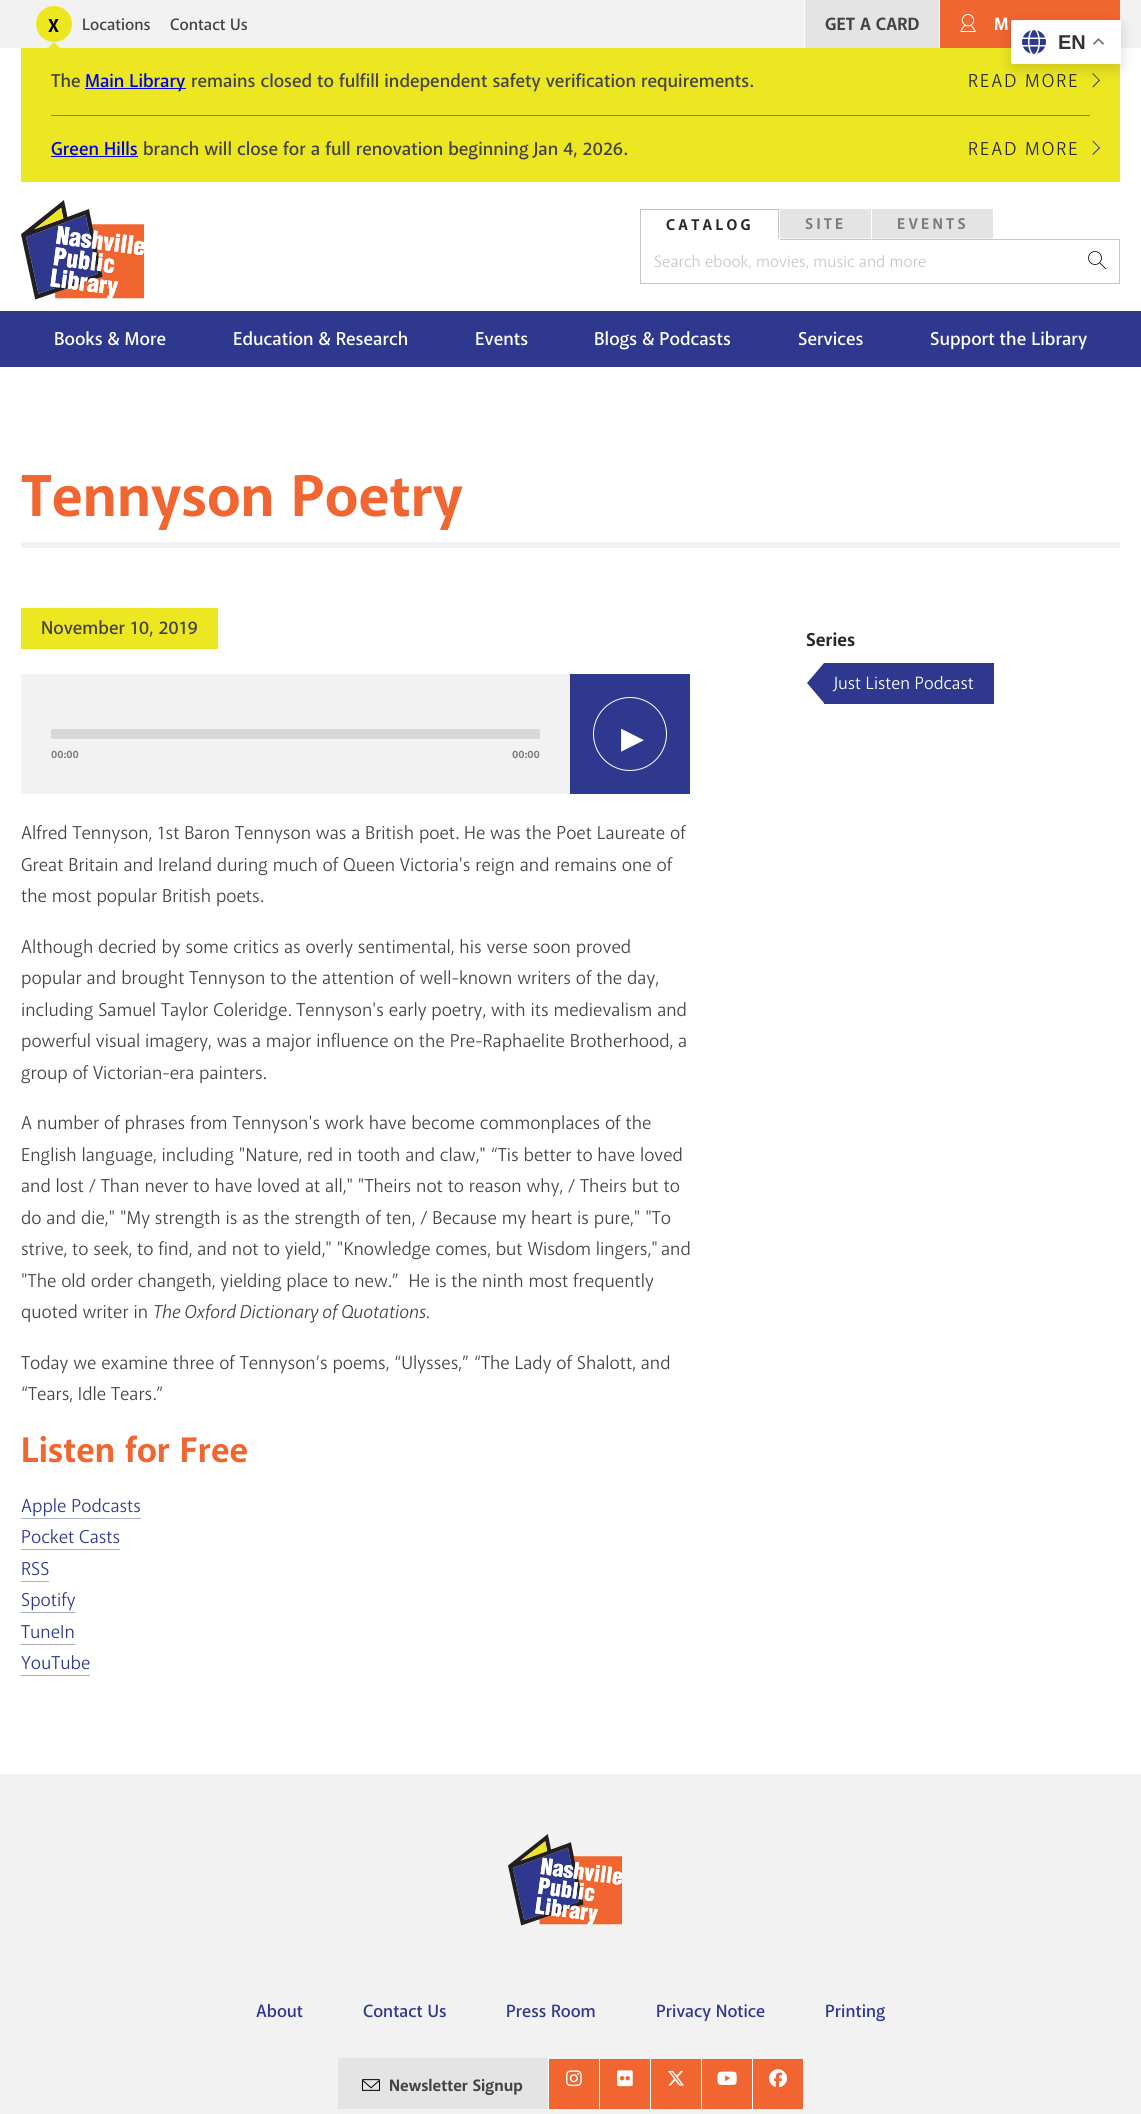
import math
import cairo

surface = cairo.ImageSurface(cairo.Format.RGB24, 1141, 2114)
ctx = cairo.Context(surface)
options = cairo.FontOptions()
options.set_hint_metrics(cairo.HintMetrics.OFF)
options.set_hint_style(cairo.HintStyle.NONE)
ctx.set_font_options(options)
ctx.set_miter_limit(4)


def ink(r, g, b):
    ctx.set_source_rgb(r / 255, g / 255, b / 255)


def write(x, y, s, family, size, color, bold=False, italic=False):
    ctx.select_font_face(family, cairo.FontSlant.ITALIC if italic else cairo.FontSlant.NORMAL, cairo.FontWeight.BOLD if bold else cairo.FontWeight.NORMAL)
    ctx.set_font_size(size)
    ink(*color)
    ctx.move_to(x, y)
    ctx.show_text(s)


def write_spaced(x, y, s, letter, word):
    ctx.move_to(x, y)
    for ch in s:
        ctx.show_text(ch)
        ctx.rel_move_to(letter + word * (ch == ' '), 0)


def block(x, y, w, h, *color):
    ink(*color)
    ctx.rectangle(x, y, w, h)
    ctx.fill()


def round_path(x, y, w, h, r):
    ctx.new_sub_path()
    for i, (u, v) in enumerate([(x + w - r, y + h - r), (x + r, y + h - r), (x + r, y + r), (x + w - r, y + r)]):
        ctx.arc(u, v, r, i * math.pi / 2, (i + 1) * math.pi / 2)
    ctx.close_path()


def blur_box(x, y, w, h, r, blur, alpha):
    ctx.push_group_with_content(cairo.Content.ALPHA)
    ctx.set_operator(cairo.Operator.SOURCE)
    for i in range(15, -16, -2):
        e = blur * i / 6
        if min(w, h) + 2 * e > 0:
            ctx.set_source_rgba(0, 0, 0, alpha * math.erfc((i - 1) / 8.5) / 2)
            round_path(x - e, y - e, w + 2 * e, h + 2 * e, max(0, min(r + e + blur * .6, min(w, h) / 2 + e)))
            ctx.fill()
    ctx.mask(ctx.pop_group())


def paste(path, x, y, w, h):
    ctx.save()
    ctx.set_source_surface(cairo.ImageSurface.create_from_png(path), x, y)
    ctx.rectangle(x, y, w, h)
    ctx.fill()
    ctx.restore()


s1 = dict(family="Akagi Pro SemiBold", size=16.75, color=(68, 68, 68))
s2 = dict(family="Akagi Pro", size=18, color=(68, 68, 68), bold=True)
s3 = dict(family="Akagi Pro", size=18, color=(255, 255, 255), bold=True)
s4 = dict(family="Akagi Pro SemiBold", size=18.9, color=(68, 68, 68))
s5 = dict(family="Akagi Pro SemiBold", size=18.9, color=(0, 0, 238))
s6 = dict(family="Akagi Pro", size=16.75, color=(199, 199, 199))
s7 = dict(family="Akagi Pro SemiBold", size=18.9, color=(255, 255, 255))
s8 = dict(family="Liberation Sans", size=20, color=(51, 51, 51), bold=True)
s9 = dict(family="Akagi Pro SemiBold", size=18, color=(46, 56, 143))
s10 = dict(family="Akagi Pro", size=16.75, color=(68, 68, 68), bold=True)
s11 = dict(family="Akagi Pro", size=60, color=(241, 101, 48), bold=True)
s12 = dict(family="DejaVu Sans", size=30, color=(255, 255, 255))
s13 = dict(family="Akagi Pro", size=11, color=(124, 124, 124), bold=True)
s14 = dict(family="Akagi Pro", size=18.9, color=(68, 68, 68))
s15 = dict(family="Akagi Pro", size=18.9, color=(68, 68, 68), italic=True)
s16 = dict(family="Akagi Pro", size=36, color=(241, 101, 48), bold=True)
s17 = dict(family="Akagi Pro", size=18.9, color=(46, 56, 143))
s18 = dict(family="Akagi Pro", size=18.9, color=(41, 41, 41), bold=True)
s19 = dict(family="Akagi Pro", size=18, color=(255, 255, 255))

ink(255, 255, 255)
ctx.paint()
block(0, 0, 1141, 48, 242, 242, 242)
ink(237, 231, 33)
ctx.arc(54, 24, 18, 0, 2 * math.pi)
ctx.fill()
paste("pic1.png", 48, 19, 11, 13)
write(82, 30, "Locations", **s1)
write(170, 30, "Contact Us", **s1)
block(805, 0, 134, 48, 228, 228, 228)
block(804, 0, 1, 48, 255, 255, 255)
write(825, 30, "GET A CARD", **s2)
block(940, 0, 180, 48, 241, 101, 48)
paste("pic2.png", 960, 14, 16, 18)
block(939, 0, 1, 48, 255, 255, 255)
write(994, 30, "M", **s3)
block(21, 48, 1099, 134, 237, 231, 33)
ctx.new_path()
ctx.move_to(60, 48)
ctx.line_to(48, 48)
ctx.line_to(54, 42)
ctx.close_path()
ctx.fill()
block(51, 115, 1039, 1, 124, 124, 124)
write(51, 87, "The", **s4)
block(85, 88, 101, 1, 0, 0, 238)
write(85, 87, "Main Library", **s5)
write(191, 87, "remains closed to fulfill independent safety verification requirements.", **s4)
ctx.select_font_face("Akagi Pro")
ink(41, 41, 41)
write_spaced(968, 87, "READ MORE", 2, 0)
ink(46, 56, 143)
ctx.new_path()
ctx.move_to(1092.5, 74)
ctx.line_to(1093, 73)
ctx.line_to(1100, 80.5)
ctx.line_to(1099.5, 81)
ctx.close_path()
ctx.fill()
ctx.new_path()
ctx.move_to(1092.5, 86.5)
ctx.line_to(1099.5, 79.5)
ctx.line_to(1100, 80.5)
ctx.line_to(1093, 87.5)
ctx.close_path()
ctx.fill()
write(51, 155, "Green Hills", **s5)
block(51, 156, 87, 1, 0, 0, 238)
write(143, 155, "branch will close for a full renovation beginning Jan 4, 2026.", **s4)
ctx.select_font_face("Akagi Pro")
ink(41, 41, 41)
write_spaced(968, 155, "READ MORE", 2, 0)
ink(46, 56, 143)
ctx.new_path()
ctx.move_to(1092.5, 141.5)
ctx.line_to(1093, 140.5)
ctx.line_to(1100, 148)
ctx.line_to(1099.5, 148.5)
ctx.close_path()
ctx.fill()
ctx.new_path()
ctx.move_to(1092.5, 154)
ctx.line_to(1099.5, 147)
ctx.line_to(1100, 148)
ctx.line_to(1093, 155)
ctx.close_path()
ctx.fill()
paste("pic3.png", 21, 200, 124, 100)
block(640, 209, 139, 1, 197, 197, 197)
ctx.rectangle(640.5, 239.5, 479, 44)
ink(199, 199, 199)
ctx.set_line_width(1)
ctx.stroke()
block(778, 209, 1, 31, 197, 197, 197)
block(640, 239, 140, 1, 255, 255, 255)
block(640, 209, 1, 31, 197, 197, 197)
ctx.select_font_face("Akagi Pro", cairo.FontSlant.NORMAL, cairo.FontWeight.BOLD)
ctx.set_font_size(15.75)
ink(41, 41, 41)
write_spaced(666, 230, "CATALOG", 3.25, 0)
block(780, 238, 91, 1, 246, 246, 246)
block(780, 209, 91, 29, 228, 228, 228)
ink(124, 124, 124)
write_spaced(805, 229, "SITE", 3.25, 0)
block(872, 238, 121, 1, 246, 246, 246)
block(871, 239, 1, 1, 255, 255, 255)
block(872, 209, 121, 29, 228, 228, 228)
ink(124, 124, 124)
write_spaced(897, 229, "EVENTS", 3.25, 0)
write(654, 267, "Search ebook, movies, music and more", **s6)
ctx.new_path()
ctx.arc(1095, 258, 6.5, 0, 2 * math.pi)
ink(0, 0, 0)
ctx.set_line_width(0.8)
ctx.stroke()
ctx.new_path()
ctx.move_to(1106, 269)
ctx.line_to(1100, 263)
ctx.stroke()
block(0, 311, 1141, 56, 46, 56, 143)
write(54, 345, "Books & More", **s7)
write(233, 345, "Education & Research", **s7)
write(475, 345, "Events", **s7)
write(594, 345, "Blogs & Podcasts", **s7)
write(798, 345, "Services", **s7)
write(930, 345, "Support the Library", **s7)
block(0, 1774, 1141, 340, 242, 242, 242)
ink(0, 0, 0)
blur_box(1011, 25, 110, 44, 2, 7.5, 0.15)
ink(255, 255, 255)
round_path(1011, 20, 110, 44, 2)
ctx.fill()
paste("pic4.png", 1022, 30, 24, 24)
write(1058, 49, "EN", **s8)
paste("pic5.png", 1093, 38, 11, 7)
paste("pic6.png", 508, 1834, 115, 92)
write(256, 2017, "About", **s9)
write(363, 2017, "Contact Us", **s9)
write(506, 2017, "Press Room", **s9)
write(656, 2017, "Privacy Notice", **s9)
write(825, 2017, "Printing", **s9)
block(338, 2058, 210, 51, 228, 228, 228)
paste("pic7.png", 362, 2079, 18, 12)
write(389, 2091, "Newsletter Signup", **s10)
block(548, 2059, 1, 50, 255, 255, 255)
block(549, 2059, 50, 50, 241, 101, 48)
paste("pic8.png", 566, 2070, 16, 17)
block(599, 2059, 1, 50, 255, 255, 255)
block(600, 2059, 50, 50, 241, 101, 48)
paste("pic9.png", 617, 2070, 16, 17)
block(650, 2059, 1, 50, 255, 255, 255)
block(651, 2059, 50, 50, 241, 101, 48)
paste("pic10.png", 668, 2070, 16, 16)
block(701, 2059, 1, 50, 255, 255, 255)
block(702, 2059, 50, 50, 241, 101, 48)
paste("pic11.png", 717, 2071, 20, 14)
block(752, 2059, 1, 50, 255, 255, 255)
block(753, 2059, 50, 50, 241, 101, 48)
paste("pic12.png", 769, 2069, 18, 19)
block(21, 542, 1099, 6, 242, 242, 242)
write(21, 516, "Tennyson Poetry", **s11)
block(21, 608, 197, 41, 237, 231, 33)
write(41, 634, "November 10, 2019", **s4)
block(21, 674, 549, 120, 242, 242, 242)
ink(213, 217, 220)
round_path(51, 729, 489, 10, 2)
ctx.fill()
block(570, 674, 120, 120, 46, 56, 143)
ctx.arc(630, 734, 36.5, 0, 2 * math.pi)
ink(255, 255, 255)
ctx.set_line_width(1)
ctx.stroke()
write(621, 748, "▶", **s12)
write(51, 758, "00:00", **s13)
write(512, 758, "00:00", **s13)
write(21, 839, "Alfred Tennyson, 1st Baron Tennyson was a British poet. He was the Poet Laureate of", **s14)
write(21, 871, "Great Britain and Ireland during much of Queen Victoria's reign and remains one of", **s14)
write(21, 902, "the most popular British poets.", **s14)
write(21, 953, "Although decried by some critics as overly sentimental, his verse soon proved", **s14)
write(21, 984, "popular and brought Tennyson to the attention of well-known writers of the day,", **s14)
write(21, 1016, "including Samuel Taylor Coleridge. Tennyson's early poetry, with its medievalism and", **s14)
write(21, 1047, "powerful visual imagery, was a major influence on the Pre-Raphaelite Brotherhood, a", **s14)
write(21, 1079, "group of Victorian-era painters.", **s14)
write(21, 1129, "A number of phrases from Tennyson's work have become commonplaces of the", **s14)
write(21, 1161, "English language, including \"Nature, red in tooth and claw,\" “Tis better to have loved", **s14)
write(21, 1192, "and lost / Than never to have loved at all,\" \"Theirs not to reason why, / Theirs but to", **s14)
write(21, 1224, "do and die,\" \"My strength is as the strength of ten, / Because my heart is pure,\" \"To", **s14)
write(21, 1255, "strive, to seek, to find, and not to yield,\" \"Knowledge comes, but Wisdom lingers,\"", **s14)
write(661, 1255, "and", **s14)
write(21, 1287, "\"The old order changeth, yielding place to new.”  He is the ninth most frequently", **s14)
write(21, 1318, "quoted writer in", **s14)
write(153, 1318, "The Oxford Dictionary of Quotations.", **s15)
write(21, 1369, "Today we examine three of Tennyson’s poems, “Ulysses,” “The Lady of Shalott, and", **s14)
write(21, 1400, "“Tears, Idle Tears.”", **s14)
write(21, 1462, "Listen for Free", **s16)
write(21, 1512, "Apple Podcasts", **s17)
block(21, 1518, 120, 1, 171, 175, 210)
write(21, 1543, "Pocket Casts", **s17)
block(21, 1549, 99, 1, 171, 175, 210)
write(21, 1575, "RSS", **s17)
block(21, 1581, 28, 1, 171, 175, 210)
write(21, 1606, "Spotify", **s17)
block(21, 1612, 54, 1, 171, 175, 210)
write(21, 1638, "TuneIn", **s17)
block(21, 1644, 54, 1, 171, 175, 210)
write(21, 1669, "YouTube", **s17)
block(21, 1675, 69, 1, 171, 175, 210)
write(806, 646, "Series", **s18)
block(824, 663, 170, 41, 46, 56, 143)
ctx.new_path()
ctx.move_to(824, 663)
ctx.line_to(824, 703)
ctx.line_to(807, 683)
ctx.close_path()
ctx.fill()
write(834, 689, "Just Listen Podcast", **s19)
surface.write_to_png("screenshot.png")
